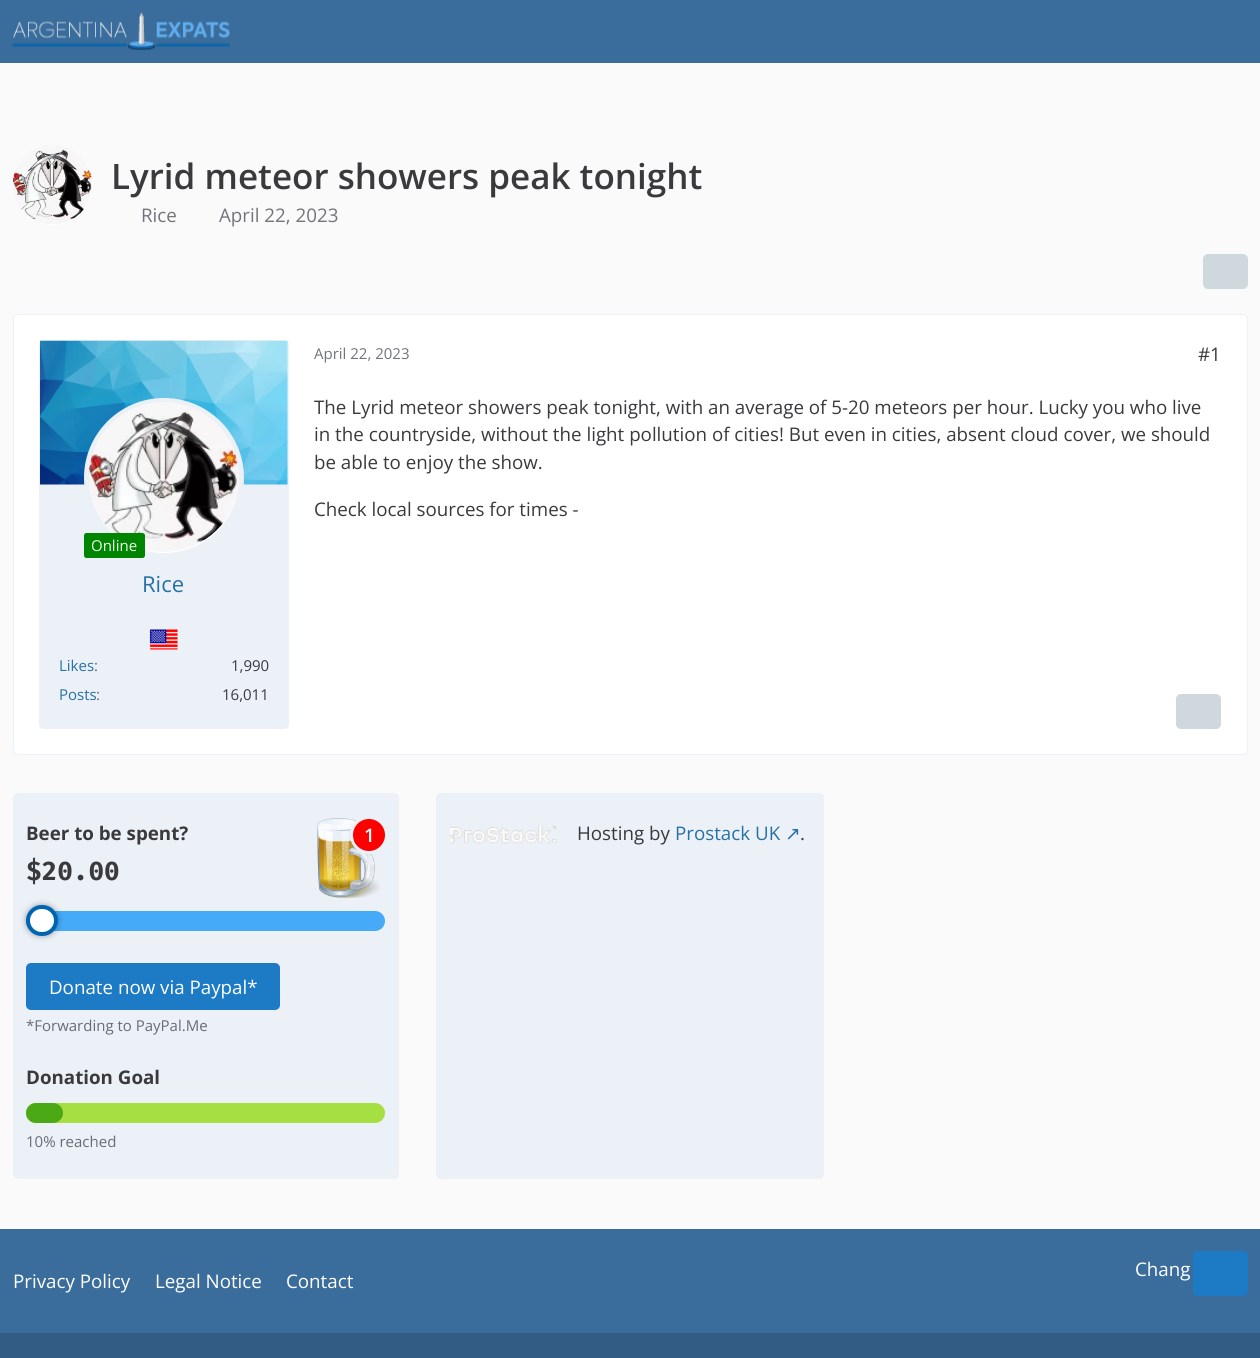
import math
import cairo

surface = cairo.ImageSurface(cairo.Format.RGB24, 1260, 1358)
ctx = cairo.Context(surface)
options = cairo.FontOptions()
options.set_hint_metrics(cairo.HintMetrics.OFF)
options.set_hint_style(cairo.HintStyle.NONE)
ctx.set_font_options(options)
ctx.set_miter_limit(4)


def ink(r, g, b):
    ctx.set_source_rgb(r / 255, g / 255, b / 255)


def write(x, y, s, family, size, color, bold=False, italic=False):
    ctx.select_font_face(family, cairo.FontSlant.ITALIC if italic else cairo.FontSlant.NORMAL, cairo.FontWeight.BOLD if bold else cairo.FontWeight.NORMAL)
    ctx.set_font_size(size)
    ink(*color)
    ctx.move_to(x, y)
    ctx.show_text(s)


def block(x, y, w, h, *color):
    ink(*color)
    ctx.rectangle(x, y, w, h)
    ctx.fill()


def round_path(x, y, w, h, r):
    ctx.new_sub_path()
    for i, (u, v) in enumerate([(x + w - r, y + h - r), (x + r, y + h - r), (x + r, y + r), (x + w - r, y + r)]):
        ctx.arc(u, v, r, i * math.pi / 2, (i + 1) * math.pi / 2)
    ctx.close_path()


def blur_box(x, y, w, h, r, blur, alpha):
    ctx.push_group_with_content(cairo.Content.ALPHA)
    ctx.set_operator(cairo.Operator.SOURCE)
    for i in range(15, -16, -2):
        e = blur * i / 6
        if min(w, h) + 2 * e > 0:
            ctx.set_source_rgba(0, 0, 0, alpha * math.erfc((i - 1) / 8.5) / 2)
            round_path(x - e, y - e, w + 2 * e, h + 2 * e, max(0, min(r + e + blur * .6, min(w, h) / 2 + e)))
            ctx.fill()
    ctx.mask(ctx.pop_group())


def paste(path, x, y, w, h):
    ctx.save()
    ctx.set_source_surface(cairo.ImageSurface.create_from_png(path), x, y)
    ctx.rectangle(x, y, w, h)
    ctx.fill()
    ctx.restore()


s1 = dict(family="Open Sans SemiBold", size=35, color=(58, 58, 61))
s2 = dict(family="Open Sans", size=18.75, color=(113, 117, 122))
s3 = dict(family="Open Sans", size=15, color=(113, 117, 122))
s4 = dict(family="Open Sans", size=18.75, color=(58, 58, 61))
s5 = dict(family="Open Sans", size=15, color=(238, 255, 238))
s6 = dict(family="Open Sans", size=22, color=(38, 113, 166))
s7 = dict(family="Open Sans", size=15, color=(38, 113, 166))
s8 = dict(family="Open Sans", size=15, color=(105, 109, 114))
s9 = dict(family="Open Sans", size=15, color=(58, 58, 61))
s10 = dict(family="Open Sans", size=18.75, color=(58, 58, 61), bold=True)
s11 = dict(family="Fira Mono", size=26, color=(58, 58, 61), bold=True)
s12 = dict(family="Open Sans SemiBold", size=18.75, color=(255, 255, 255))
s13 = dict(family="Open Sans", size=18.75, color=(255, 255, 255))
s14 = dict(family="Open Sans", size=18.75, color=(38, 113, 166))
s15 = dict(family="DejaVu Sans", size=18.75, color=(38, 113, 166))

ink(250, 250, 250)
ctx.paint()
block(0, 0, 1260, 63, 58, 109, 156)
paste("pic1.png", 12, 12, 218, 38)
ink(255, 255, 255)
ctx.arc(53, 185, 40, 0, 2 * math.pi)
ctx.fill()
paste("pic2.png", 12, 145, 80, 79)
write(111, 189, "Lyrid meteor showers peak tonight", **s1)
write(141, 222, "Rice", **s2)
write(219, 222, "April 22, 2023", **s2)
ink(207, 216, 220)
round_path(1203, 254, 45, 35, 5)
ctx.fill()
ink(255, 255, 255)
round_path(13.5, 314.5, 1234, 440, 4.5)
ctx.fill_preserve()
ink(236, 241, 247)
ctx.set_line_width(1)
ctx.stroke()
write(314, 359, "April 22, 2023", **s3)
write(1198, 361, "#1", **s4)
write(314, 414, "The Lyrid meteor showers peak tonight, with an average of 5-20 meteors per hour. Lucky you who live", **s4)
write(314, 441, "in the countryside, without the light pollution of cities! But even in cities, absent cloud cover, we should", **s4)
write(314, 469, "be able to enjoy the show.", **s4)
write(314, 516, "Check local sources for times -", **s4)
ink(207, 216, 220)
round_path(1176, 694, 45, 35, 5)
ctx.fill()
ink(236, 241, 247)
round_path(39, 340, 250, 389, 5)
ctx.fill()
paste("pic3.png", 40, 340, 248, 145)
ink(255, 255, 255)
ctx.arc(164, 478, 77.5, 0, 2 * math.pi)
ctx.fill_preserve()
ink(236, 241, 247)
ctx.set_line_width(5)
ctx.stroke()
paste("pic4.png", 89, 402, 150, 150)
ink(0, 133, 0)
round_path(84, 533, 61, 25, 2.5)
ctx.fill()
write(91, 551, "Online", **s5)
write(142, 592, "Rice", **s6)
paste("pic5.png", 149, 629, 29, 21)
write(59, 671, "Likes", **s7)
write(94, 671, ":", **s8)
write(231, 671, "1,990", **s9)
write(59, 700, "Posts", **s7)
write(96, 700, ":", **s8)
write(222, 700, "16,011", **s9)
ink(236, 241, 247)
round_path(13, 793, 386, 386, 5)
ctx.fill()
write(26, 840, "Beer to be spent?", **s10)
write(26, 880, "$20.00", **s11)
paste("pic6.png", 317, 818, 63, 81)
ctx.arc(369, 835, 17.5, 0, 2 * math.pi)
ink(236, 241, 247)
ctx.set_line_width(3)
ctx.stroke()
ink(255, 0, 0)
ctx.arc(369, 835, 16, 0, 2 * math.pi)
ctx.fill()
write(364, 842, "1", **s12)
ink(69, 171, 248)
round_path(26, 911, 359, 20, 10)
ctx.fill()
ink(0, 0, 0)
blur_box(26, 905, 32, 31, 15.5, 3, 0.35)
ink(255, 255, 255)
round_path(28, 907, 28, 27, 13.5)
ctx.fill_preserve()
ink(0, 101, 177)
ctx.set_line_width(4)
ctx.stroke()
ink(29, 122, 197)
round_path(26, 963, 254, 47, 5)
ctx.fill()
write(49, 994, "Donate now via Paypal*", **s13)
write(26, 1031, "*Forwarding to PayPal.Me", **s8)
write(26, 1084, "Donation Goal", **s10)
ink(165, 223, 65)
round_path(26, 1103, 359, 20, 10)
ctx.fill()
ink(76, 169, 22)
round_path(26, 1103, 37, 20, 10)
ctx.fill()
write(26, 1147, "10% reached", **s8)
ink(236, 241, 247)
round_path(436, 793, 388, 386, 5)
ctx.fill()
paste("pic7.png", 450, 825, 108, 19)
write(577, 840, "Hosting by", **s4)
write(675, 840, "Prostack UK", **s14)
write(785, 840, "↗", **s15)
write(800, 840, ".", **s4)
block(0, 1229, 1260, 104, 58, 109, 156)
write(1135, 1276, "Chang", **s13)
write(13, 1288, "Privacy Policy", **s13)
write(155, 1288, "Legal Notice", **s13)
write(286, 1288, "Contact", **s13)
block(0, 1333, 1260, 25, 50, 92, 132)
ink(29, 122, 197)
round_path(1193, 1251, 55, 45, 5)
ctx.fill()
surface.write_to_png("screenshot.png")
